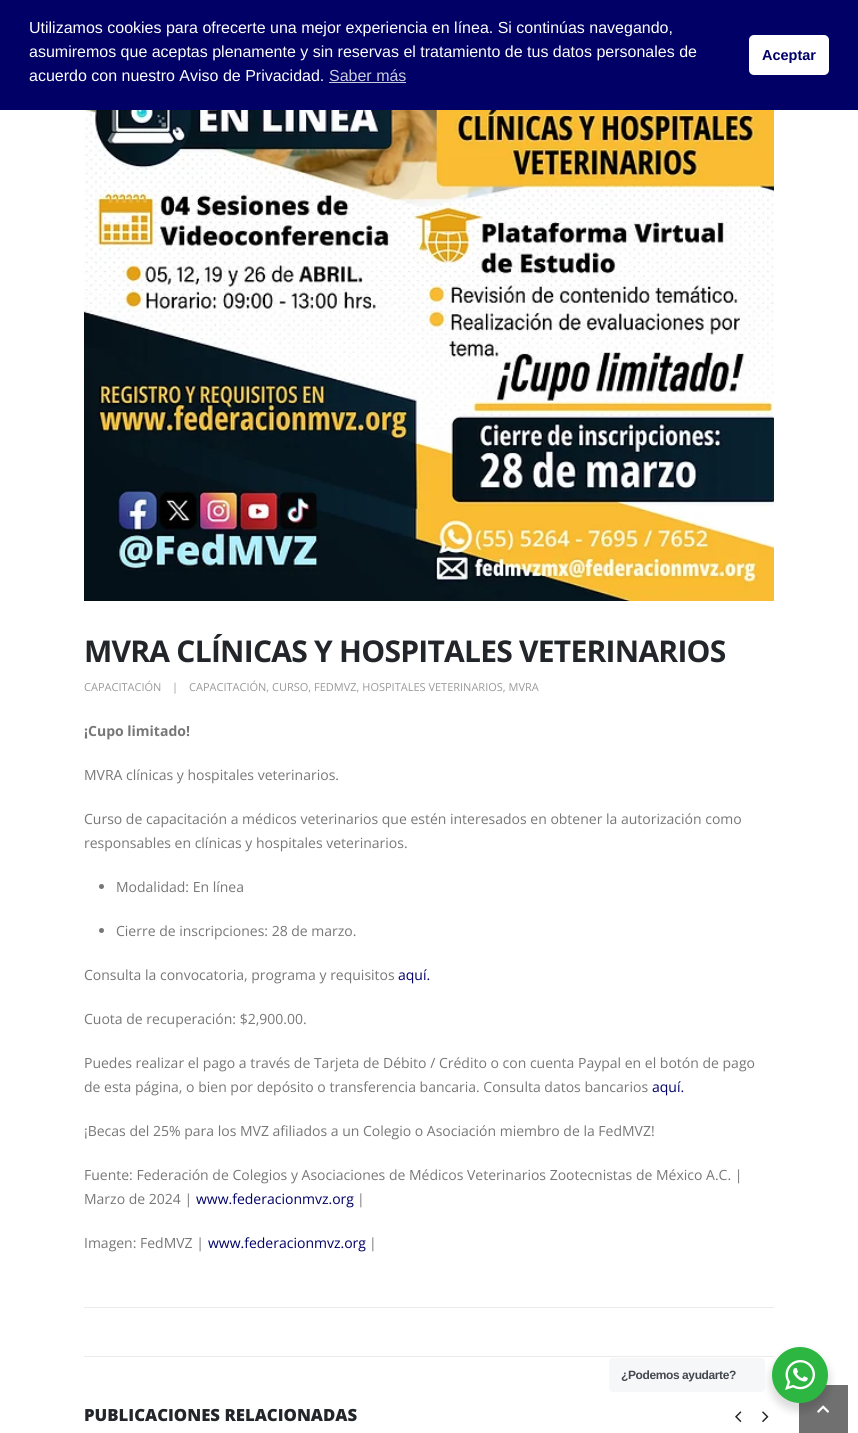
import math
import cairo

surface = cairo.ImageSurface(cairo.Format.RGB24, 858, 1433)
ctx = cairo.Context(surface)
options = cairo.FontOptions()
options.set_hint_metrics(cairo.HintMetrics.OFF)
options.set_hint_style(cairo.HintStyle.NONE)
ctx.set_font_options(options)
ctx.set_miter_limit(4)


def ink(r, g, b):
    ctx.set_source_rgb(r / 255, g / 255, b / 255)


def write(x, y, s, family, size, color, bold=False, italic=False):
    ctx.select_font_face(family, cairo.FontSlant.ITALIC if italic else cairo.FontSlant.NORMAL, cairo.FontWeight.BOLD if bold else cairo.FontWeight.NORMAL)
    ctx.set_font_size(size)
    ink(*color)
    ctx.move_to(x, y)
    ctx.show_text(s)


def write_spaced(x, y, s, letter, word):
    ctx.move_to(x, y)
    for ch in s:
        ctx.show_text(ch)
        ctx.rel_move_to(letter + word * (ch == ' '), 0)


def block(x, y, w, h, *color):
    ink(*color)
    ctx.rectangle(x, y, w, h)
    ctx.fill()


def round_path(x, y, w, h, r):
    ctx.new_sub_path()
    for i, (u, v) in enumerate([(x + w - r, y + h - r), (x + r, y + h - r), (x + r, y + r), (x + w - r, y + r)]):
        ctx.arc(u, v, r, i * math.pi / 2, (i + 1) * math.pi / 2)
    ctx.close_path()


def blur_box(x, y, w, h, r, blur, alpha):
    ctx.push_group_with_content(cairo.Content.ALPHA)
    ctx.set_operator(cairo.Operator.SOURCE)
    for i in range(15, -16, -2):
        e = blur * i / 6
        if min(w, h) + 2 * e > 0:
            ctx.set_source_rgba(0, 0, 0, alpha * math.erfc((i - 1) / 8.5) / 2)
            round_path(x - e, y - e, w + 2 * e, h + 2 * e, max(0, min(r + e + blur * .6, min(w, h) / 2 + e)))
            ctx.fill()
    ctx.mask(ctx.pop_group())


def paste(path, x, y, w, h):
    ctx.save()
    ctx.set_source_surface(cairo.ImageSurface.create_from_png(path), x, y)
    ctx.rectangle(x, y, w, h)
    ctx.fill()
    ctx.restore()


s1 = dict(family="Liberation Sans", size=16, color=(255, 255, 255))
s2 = dict(family="Liberation Sans", size=16, color=(204, 204, 225))
s3 = dict(family="Liberation Sans", size=14.5, color=(0, 0, 102), bold=True)
s4 = dict(family="Open Sans", size=11, color=(153, 153, 153))
s5 = dict(family="Open Sans", size=14, color=(119, 119, 119), bold=True)
s6 = dict(family="Open Sans", size=14, color=(119, 119, 119))
s7 = dict(family="Open Sans", size=14, color=(0, 0, 102))
s8 = dict(family="Open Sans ExtraBold", size=16.75, color=(34, 37, 41))

ink(255, 255, 255)
ctx.paint()
block(0, 0, 858, 110, 0, 0, 103)
write(29, 33, "Utilizamos cookies para ofrecerte una mejor experiencia en línea. Si continúas navegando,", **s1)
write(29, 57, "asumiremos que aceptas plenamente y sin reservas el tratamiento de tus datos personales de", **s1)
write(29, 81, "acuerdo con nuestro Aviso de Privacidad.", **s1)
write(329, 81, "Saber más", **s2)
block(329, 82, 77, 1, 204, 204, 225)
ink(255, 255, 255)
round_path(749, 35, 80, 40, 5)
ctx.fill()
write(762, 60, "Aceptar", **s3)
paste("pic1.png", 84, 110, 690, 491)
ctx.select_font_face("Open Sans", cairo.FontSlant.NORMAL, cairo.FontWeight.BOLD)
ctx.set_font_size(30)
ink(34, 37, 41)
write_spaced(84, 662, "MVRA CLÍNICAS Y HOSPITALES VETERINARIOS", -0.75, 0)
write(84, 691, "CAPACITACIÓN", **s4)
write(172, 691, "|", **s4)
write(189, 691, "CAPACITACIÓN, CURSO, FEDMVZ, HOSPITALES VETERINARIOS, MVRA", **s4)
block(84, 1307, 690, 1, 235, 235, 235)
write(84, 736, "¡Cupo limitado!", **s5)
write(84, 780, "MVRA clínicas y hospitales veterinarios.", **s6)
write(84, 824, "Curso de capacitación a médicos veterinarios que estén interesados en obtener la autorización como", **s6)
write(84, 848, "responsables en clínicas y hospitales veterinarios.", **s6)
ctx.new_path()
ctx.arc(101.5, 886.5, 2.5, 0, 2 * math.pi)
ctx.fill()
write(116, 892, "Modalidad: En línea", **s6)
ctx.new_path()
ctx.arc(101.5, 930.5, 2.5, 0, 2 * math.pi)
ctx.fill()
write(116, 936, "Cierre de inscripciones: 28 de marzo.", **s6)
write(84, 980, "Consulta la convocatoria, programa y requisitos", **s6)
write(398, 980, "aquí.", **s7)
write(84, 1024, "Cuota de recuperación: $2,900.00.", **s6)
write(84, 1068, "Puedes realizar el pago a través de Tarjeta de Débito / Crédito o con cuenta Paypal en el botón de pago", **s6)
write(84, 1092, "de esta página, o bien por depósito o transferencia bancaria. Consulta datos bancarios", **s6)
write(652, 1092, "aquí.", **s7)
write(84, 1136, "¡Becas del 25% para los MVZ afiliados a un Colegio o Asociación miembro de la FedMVZ!", **s6)
write(84, 1180, "Fuente: Federación de Colegios y Asociaciones de Médicos Veterinarios Zootecnistas de México A.C. |", **s6)
write(84, 1204, "Marzo de 2024 |", **s6)
write(196, 1204, "www.federacionmvz.org", **s7)
write(357, 1204, "|", **s6)
write(84, 1248, "Imagen: FedMVZ |", **s6)
write(208, 1248, "www.federacionmvz.org", **s7)
write(369, 1248, "|", **s6)
block(84, 1356, 690, 1, 235, 235, 235)
write(84, 1421, "PUBLICACIONES RELACIONADAS", **s8)
paste("pic2.png", 735, 1411, 7, 11)
paste("pic3.png", 762, 1411, 7, 11)
block(799, 1385, 49, 48, 112, 112, 112)
paste("pic5.png", 817, 1405, 12, 8)
ink(0, 0, 0)
blur_box(770, 1351, 60, 60, 30, 4, 0.14)
ink(245, 247, 249)
round_path(609, 1358, 156, 34, 4)
ctx.fill()
ctx.select_font_face("Liberation Sans", cairo.FontSlant.NORMAL, cairo.FontWeight.BOLD)
ctx.set_font_size(12)
ink(67, 71, 78)
write_spaced(621, 1379, "¿Podemos ayudarte?", -0.4, 0)
ink(45, 183, 66)
ctx.new_path()
ctx.arc(800, 1375, 28, 0, 2 * math.pi)
ctx.fill()
paste("pic4.png", 785, 1360, 30, 30)
surface.write_to_png("screenshot.png")
